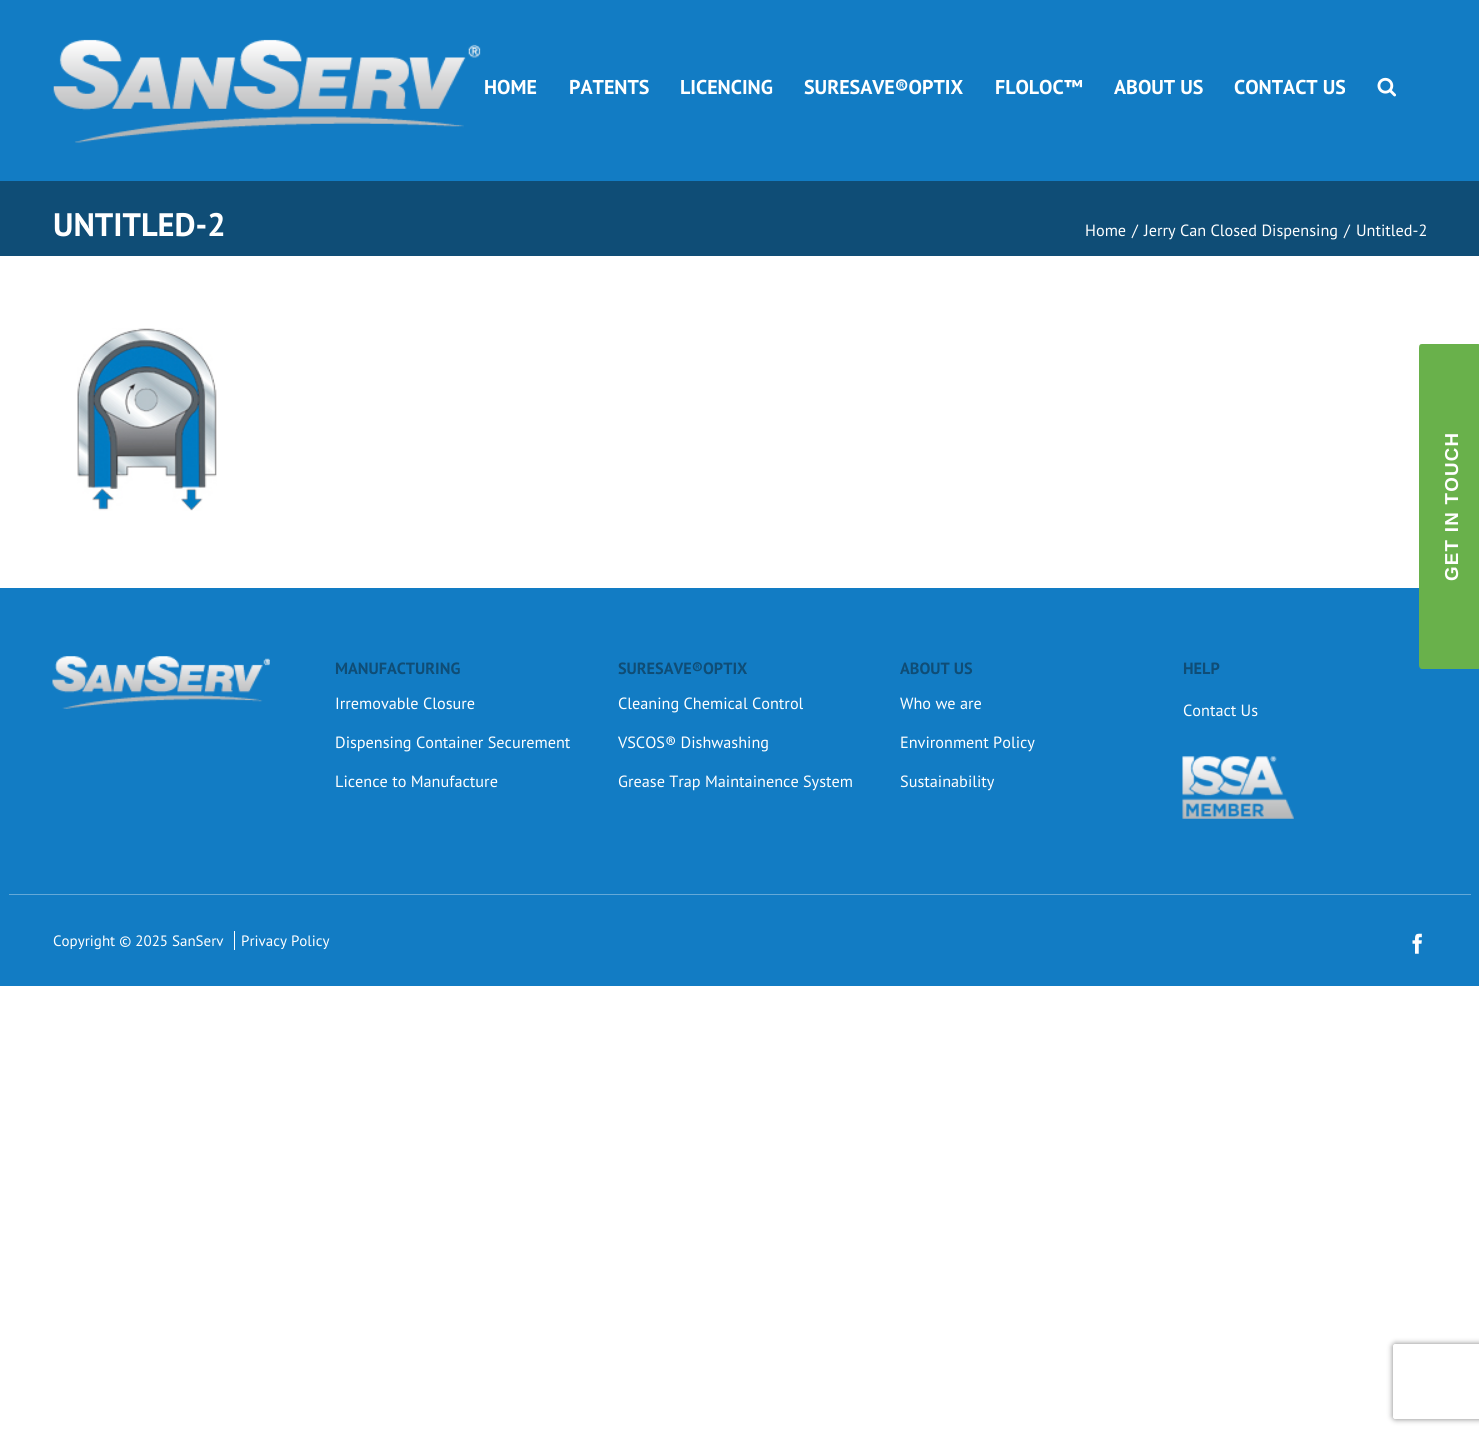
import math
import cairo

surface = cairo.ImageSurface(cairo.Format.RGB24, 1479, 1436)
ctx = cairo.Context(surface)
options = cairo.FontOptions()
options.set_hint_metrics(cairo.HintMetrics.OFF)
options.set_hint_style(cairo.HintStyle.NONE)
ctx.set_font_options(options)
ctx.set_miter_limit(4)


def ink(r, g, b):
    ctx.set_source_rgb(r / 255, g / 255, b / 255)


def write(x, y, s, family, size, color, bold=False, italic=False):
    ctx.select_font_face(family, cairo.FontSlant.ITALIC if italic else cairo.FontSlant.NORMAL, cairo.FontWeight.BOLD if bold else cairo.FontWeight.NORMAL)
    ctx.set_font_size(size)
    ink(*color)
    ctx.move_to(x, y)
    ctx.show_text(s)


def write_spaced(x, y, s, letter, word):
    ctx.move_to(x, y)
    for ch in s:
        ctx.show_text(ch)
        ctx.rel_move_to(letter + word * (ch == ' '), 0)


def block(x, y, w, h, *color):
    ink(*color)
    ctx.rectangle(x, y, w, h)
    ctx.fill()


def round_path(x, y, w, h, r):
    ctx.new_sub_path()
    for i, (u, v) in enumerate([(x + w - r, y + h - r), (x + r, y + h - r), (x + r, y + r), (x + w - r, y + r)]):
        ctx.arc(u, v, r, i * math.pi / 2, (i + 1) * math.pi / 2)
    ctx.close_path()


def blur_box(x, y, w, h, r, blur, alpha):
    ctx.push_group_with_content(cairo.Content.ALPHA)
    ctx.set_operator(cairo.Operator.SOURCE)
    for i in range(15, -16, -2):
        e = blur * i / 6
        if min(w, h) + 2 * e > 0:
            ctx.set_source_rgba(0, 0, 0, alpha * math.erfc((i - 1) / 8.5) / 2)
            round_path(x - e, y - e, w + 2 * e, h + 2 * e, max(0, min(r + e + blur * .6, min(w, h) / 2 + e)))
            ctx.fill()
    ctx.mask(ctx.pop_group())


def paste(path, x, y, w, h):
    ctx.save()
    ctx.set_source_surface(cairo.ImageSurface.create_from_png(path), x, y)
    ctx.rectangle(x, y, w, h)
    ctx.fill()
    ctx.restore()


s1 = dict(family="PT Sans", size=20, color=(255, 255, 255), bold=True)
s2 = dict(family="PT Sans", size=32.5, color=(255, 255, 255), bold=True)
s3 = dict(family="PT Sans", size=16.25, color=(255, 255, 255))
s4 = dict(family="PT Sans", size=16.25, color=(15, 77, 118), bold=True)
s5 = dict(family="PT Sans", size=15, color=(255, 255, 255))

ink(255, 255, 255)
ctx.paint()
block(0, 0, 1479, 181, 18, 124, 196)
paste("pic1.png", 53, 39, 428, 104)
write(484, 94, "HOME", **s1)
write(569, 94, "PATENTS", **s1)
write(680, 94, "LICENCING", **s1)
write(804, 94, "SURESAVE®OPTIX", **s1)
write(995, 94, "FLOLOC™", **s1)
write(1114, 94, "ABOUT US", **s1)
write(1234, 94, "CONTACT US", **s1)
paste("pic2.png", 1377, 77, 19, 20)
block(0, 181, 1479, 75, 15, 77, 118)
write(53, 236, "UNTITLED-2", **s2)
write(1085, 236, "Home", **s3)
write(1132, 236, "/", **s3)
write(1144, 236, "Jerry Can Closed Dispensing", **s3)
write(1344, 236, "/", **s3)
write(1356, 236, "Untitled-2", **s3)
paste("pic3.png", 77, 328, 140, 183)
block(0, 588, 1479, 398, 18, 124, 196)
ink(105, 177, 75)
ctx.new_path()
ctx.move_to(1419, 665)
ctx.line_to(1419, 348)
ctx.curve_to(1419, 345, 1420, 344, 1422, 344)
ctx.line_to(1478, 344)
ctx.curve_to(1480, 344, 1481, 345, 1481, 348)
ctx.line_to(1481, 665)
ctx.curve_to(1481, 667, 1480, 669, 1478, 669)
ctx.line_to(1422, 669)
ctx.curve_to(1420, 669, 1419, 667, 1419, 665)
ctx.close_path()
ctx.fill()
ctx.select_font_face("Liberation Sans", cairo.FontSlant.NORMAL, cairo.FontWeight.BOLD)
ctx.set_font_size(18.75)
ink(255, 255, 255)
ctx.save()
ctx.translate(1458, 581)
ctx.rotate(-90 * math.pi / 180)
write_spaced(0, 0, "GET IN TOUCH", 1.25, 0)
ctx.restore()
paste("pic4.png", 52, 656, 218, 53)
write(335, 674, "MANUFACTURING", **s4)
write(335, 709, "Irremovable Closure", **s3)
write(335, 748, "Dispensing Container Securement", **s3)
write(335, 787, "Licence to Manufacture", **s3)
write(618, 674, "SURESAVE®OPTIX", **s4)
write(618, 709, "Cleaning Chemical Control", **s3)
write(618, 748, "VSCOS® Dishwashing", **s3)
write(618, 787, "Grease Trap Maintainence System", **s3)
write(900, 674, "ABOUT US", **s4)
write(900, 709, "Who we are", **s3)
write(900, 748, "Environment Policy", **s3)
write(900, 787, "Sustainability", **s3)
write(1183, 674, "HELP", **s4)
write(1183, 716, "Contact Us", **s3)
paste("pic5.png", 1182, 756, 112, 63)
block(9, 894, 1462, 1, 100, 169, 216)
write(53, 946, "Copyright © 2025 SanServ", **s5)
write(241, 946, "Privacy Policy", **s5)
block(234, 931, 1, 19, 255, 255, 255)
paste("pic6.png", 1412, 933, 10, 21)
ctx.save()
ctx.set_fill_rule(cairo.FillRule.EVEN_ODD)
ctx.new_path()
ctx.move_to(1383, 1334)
ctx.line_to(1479, 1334)
ctx.line_to(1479, 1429)
ctx.line_to(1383, 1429)
ctx.close_path()
ctx.move_to(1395.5, 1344)
ctx.line_to(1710.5, 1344)
ctx.curve_to(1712, 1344, 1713, 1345, 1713, 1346.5)
ctx.line_to(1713, 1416.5)
ctx.curve_to(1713, 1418, 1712, 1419, 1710.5, 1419)
ctx.line_to(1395.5, 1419)
ctx.curve_to(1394, 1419, 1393, 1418, 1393, 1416.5)
ctx.line_to(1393, 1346.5)
ctx.curve_to(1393, 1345, 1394, 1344, 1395.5, 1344)
ctx.close_path()
ctx.clip()
ink(128, 128, 128)
blur_box(1393, 1344, 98, 75, 2.5, 3, 1)
ctx.restore()
surface.write_to_png("screenshot.png")
